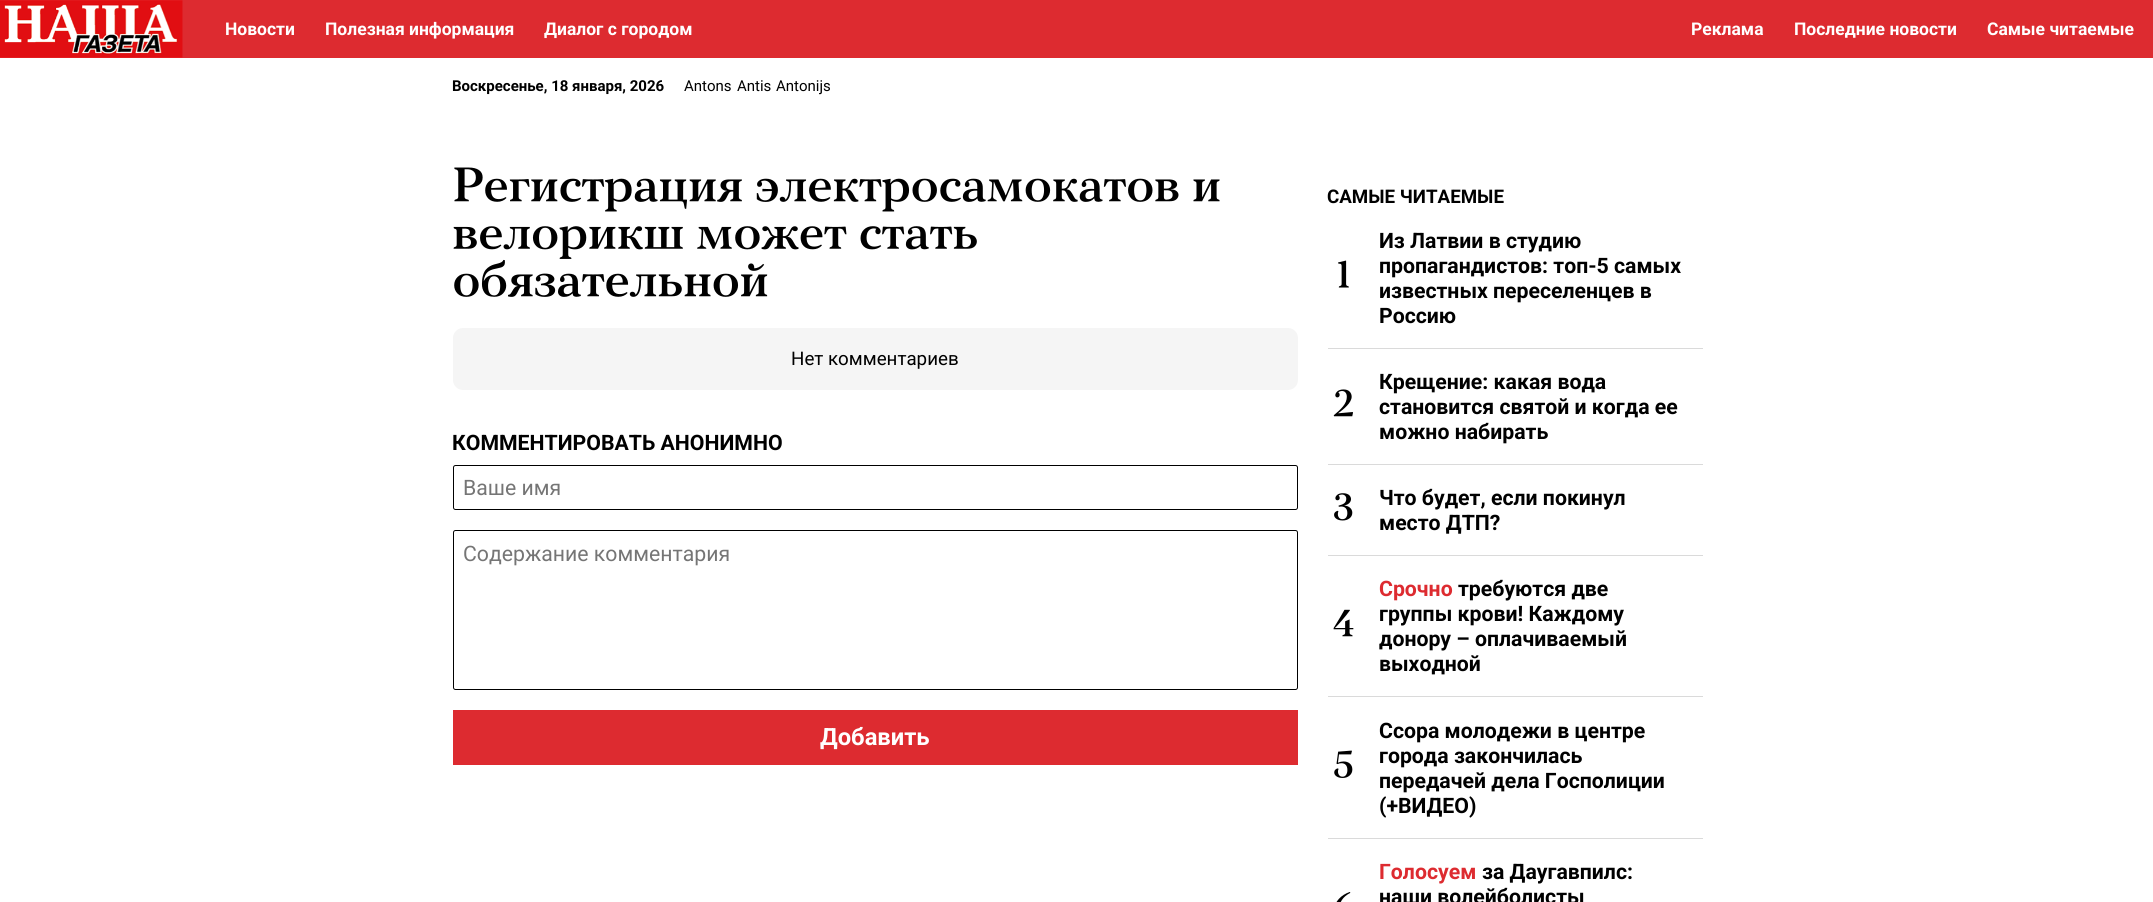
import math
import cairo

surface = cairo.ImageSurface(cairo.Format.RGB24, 2153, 902)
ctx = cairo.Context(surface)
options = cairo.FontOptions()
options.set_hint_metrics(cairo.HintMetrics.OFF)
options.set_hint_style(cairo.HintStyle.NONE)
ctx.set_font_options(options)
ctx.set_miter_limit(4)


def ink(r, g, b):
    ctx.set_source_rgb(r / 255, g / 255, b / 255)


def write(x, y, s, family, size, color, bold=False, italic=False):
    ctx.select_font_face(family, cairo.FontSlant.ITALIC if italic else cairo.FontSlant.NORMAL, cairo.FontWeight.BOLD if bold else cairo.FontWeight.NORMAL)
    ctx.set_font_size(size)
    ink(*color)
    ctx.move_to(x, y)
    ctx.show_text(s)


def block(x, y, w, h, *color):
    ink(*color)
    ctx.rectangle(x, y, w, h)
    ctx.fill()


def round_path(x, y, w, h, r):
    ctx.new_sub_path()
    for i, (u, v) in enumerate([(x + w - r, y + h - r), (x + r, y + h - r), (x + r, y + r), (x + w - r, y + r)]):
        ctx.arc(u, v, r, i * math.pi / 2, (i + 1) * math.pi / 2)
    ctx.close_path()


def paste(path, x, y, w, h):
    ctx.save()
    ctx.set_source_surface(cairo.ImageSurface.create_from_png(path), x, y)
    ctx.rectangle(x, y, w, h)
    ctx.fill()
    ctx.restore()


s1 = dict(family="Roboto", size=17.5, color=(255, 255, 255), bold=True)
s2 = dict(family="Roboto", size=15, color=(0, 0, 0), bold=True)
s3 = dict(family="Roboto", size=15, color=(0, 0, 0))
s4 = dict(family="Roboto", size=18.75, color=(0, 0, 0))
s5 = dict(family="Roboto", size=21.25, color=(0, 0, 0), bold=True)
s6 = dict(family="Roboto", size=21.25, color=(117, 117, 117))
s7 = dict(family="Roboto", size=23.75, color=(255, 255, 255), bold=True)
s8 = dict(family="Roboto", size=18.75, color=(0, 0, 0), bold=True)
s9 = dict(family="Roboto", size=21.25, color=(221, 43, 48), bold=True)

ink(255, 255, 255)
ctx.paint()
block(182, 0, 1971, 58, 221, 43, 48)
paste("pic1.png", 0, 0, 183, 58)
write(225, 35, "Новости", **s1)
write(325, 35, "Полезная информация", **s1)
write(544, 35, "Диалог с городом", **s1)
write(1691, 35, "Реклама", **s1)
write(1794, 35, "Последние новости", **s1)
write(1987, 35, "Самые читаемые", **s1)
write(452, 91, "Воскресенье, 18 января, 2026", **s2)
write(684, 91, "Antons", **s3)
write(737, 91, "Antis", **s3)
write(776, 91, "Antonijs", **s3)
paste("pic2.png", 454, 167, 766, 45)
paste("pic3.png", 453, 226, 524, 33)
paste("pic4.png", 454, 259, 314, 38)
ink(245, 245, 245)
round_path(453, 328, 845, 62, 10)
ctx.fill()
write(791, 365, "Нет комментариев", **s4)
write(452, 450, "КОММЕНТИРОВАТЬ АНОНИМНО", **s5)
round_path(453.5, 465.5, 844, 44, 2)
ctx.set_line_width(1)
ctx.stroke()
write(463, 495, "Ваше имя", **s6)
round_path(453.5, 530.5, 844, 159, 2)
ink(0, 0, 0)
ctx.stroke()
write(463, 561, "Содержание комментария", **s6)
block(453, 710, 845, 55, 221, 43, 48)
write(820, 745, "Добавить", **s7)
write(1327, 203, "САМЫЕ ЧИТАЕМЫЕ", **s8)
block(1328, 348, 375, 1, 218, 218, 218)
paste("pic5.png", 1338, 260, 11, 28)
write(1379, 248, "Из Латвии в студию", **s5)
write(1379, 273, "пропагандистов: топ-5 самых", **s5)
write(1379, 298, "известных переселенцев в", **s5)
write(1379, 323, "Россию", **s5)
block(1328, 464, 375, 1, 218, 218, 218)
paste("pic6.png", 1333, 389, 20, 28)
write(1379, 389, "Крещение: какая вода", **s5)
write(1379, 414, "становится святой и когда ее", **s5)
write(1379, 439, "можно набирать", **s5)
block(1328, 555, 375, 1, 218, 218, 218)
paste("pic7.png", 1334, 493, 19, 28)
write(1379, 505, "Что будет, если покинул", **s5)
write(1379, 530, "место ДТП?", **s5)
block(1328, 696, 375, 1, 218, 218, 218)
paste("pic8.png", 1333, 609, 21, 28)
write(1379, 596, "Срочно", **s9)
write(1458, 596, "требуются две", **s5)
write(1379, 621, "группы крови! Каждому", **s5)
write(1379, 646, "донору – оплачиваемый", **s5)
write(1379, 671, "выходной", **s5)
block(1328, 838, 375, 1, 218, 218, 218)
paste("pic9.png", 1334, 750, 19, 28)
write(1379, 738, "Ссора молодежи в центре", **s5)
write(1379, 763, "города закончилась", **s5)
write(1379, 788, "передачей дела Госполиции", **s5)
write(1379, 813, "(+ВИДЕО)", **s5)
paste("pic10.png", 1336, 892, 15, 10)
write(1379, 879, "Голосуем", **s9)
write(1482, 879, "за Даугавпилс:", **s5)
write(1379, 904, "наши волейболисты", **s5)
surface.write_to_png("screenshot.png")
